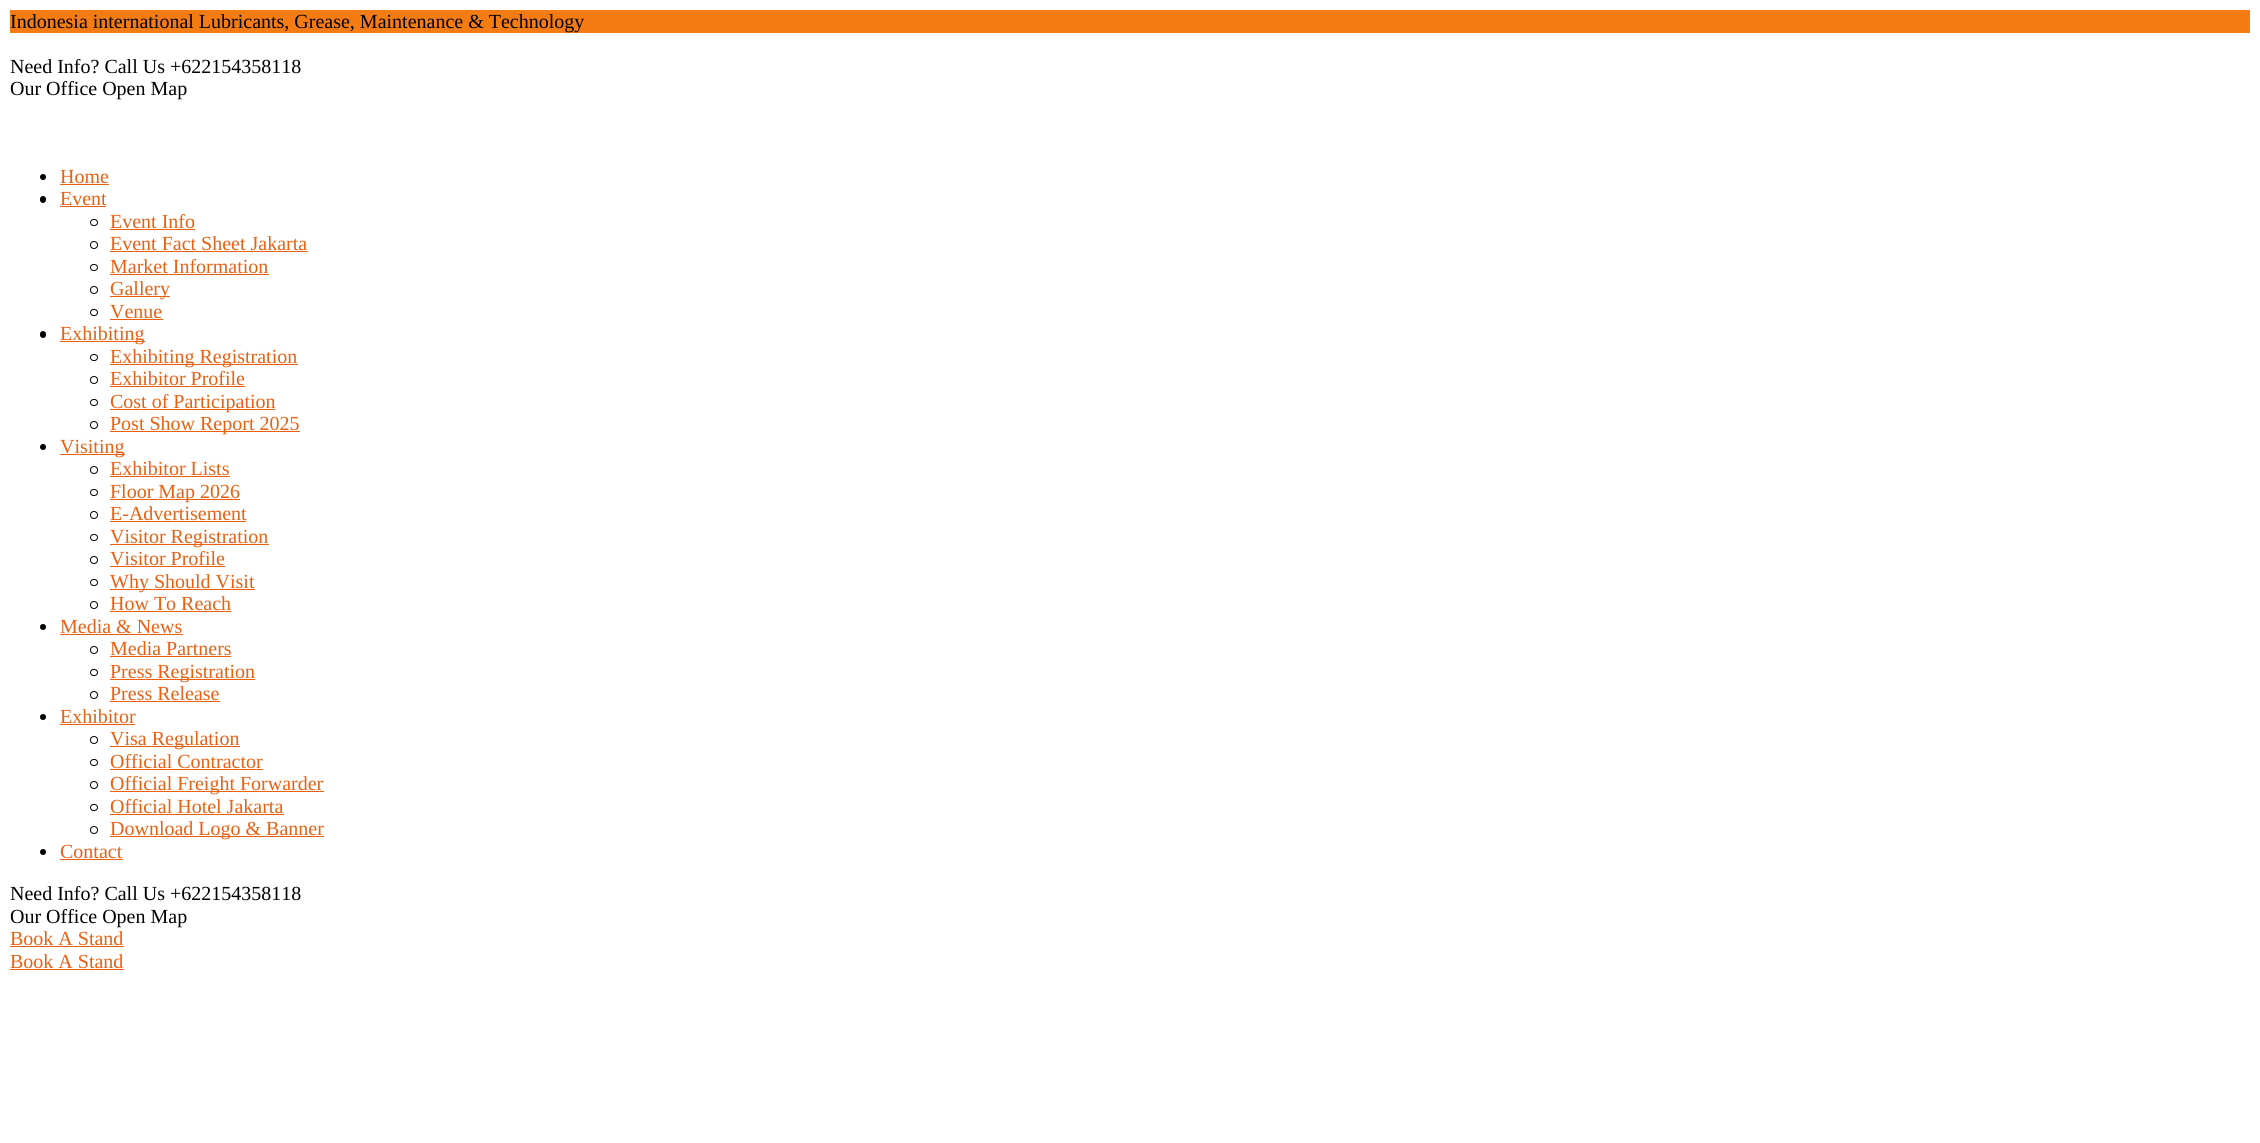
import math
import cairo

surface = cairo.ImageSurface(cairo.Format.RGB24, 2260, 1143)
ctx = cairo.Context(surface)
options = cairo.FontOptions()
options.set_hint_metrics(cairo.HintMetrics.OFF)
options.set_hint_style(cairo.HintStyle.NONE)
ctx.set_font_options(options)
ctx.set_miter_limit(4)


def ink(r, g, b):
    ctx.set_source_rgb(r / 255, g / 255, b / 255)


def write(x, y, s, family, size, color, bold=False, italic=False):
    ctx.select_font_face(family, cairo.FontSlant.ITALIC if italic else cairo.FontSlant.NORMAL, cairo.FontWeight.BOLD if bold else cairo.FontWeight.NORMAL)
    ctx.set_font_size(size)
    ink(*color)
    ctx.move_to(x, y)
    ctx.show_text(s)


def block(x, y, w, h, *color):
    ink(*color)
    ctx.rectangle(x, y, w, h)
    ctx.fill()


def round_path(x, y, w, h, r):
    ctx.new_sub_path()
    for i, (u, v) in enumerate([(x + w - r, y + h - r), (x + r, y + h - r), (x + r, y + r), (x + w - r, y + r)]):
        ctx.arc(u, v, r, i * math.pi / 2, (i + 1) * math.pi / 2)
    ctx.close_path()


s1 = dict(family="Liberation Serif", size=20, color=(0, 0, 0))
s2 = dict(family="Liberation Serif", size=20, color=(232, 96, 18))

ink(255, 255, 255)
ctx.paint()
block(10, 10, 2240, 23, 244, 124, 19)
write(10, 28, "Indonesia international Lubricants, Grease, Maintenance & Technology", **s1)
write(10, 73, "Need Info? Call Us +622154358118", **s1)
write(10, 95, "Our Office Open Map", **s1)
ctx.new_path()
ctx.arc(43, 177, 3, 0, 2 * math.pi)
ctx.fill()
write(60, 183, "Home", **s2)
block(60, 184, 49, 1, 232, 96, 18)
ink(0, 0, 0)
round_path(40, 196, 6, 7, 3)
ctx.fill()
write(60, 205, "Event", **s2)
block(60, 206, 46, 1, 232, 96, 18)
round_path(90.5, 219.5, 7, 6, 3)
ink(0, 0, 0)
ctx.set_line_width(1)
ctx.stroke()
write(110, 228, "Event Info", **s2)
block(110, 229, 85, 1, 232, 96, 18)
ctx.new_path()
ctx.arc(94, 245, 3.5, 0, 2 * math.pi)
ink(0, 0, 0)
ctx.stroke()
write(110, 250, "Event Fact Sheet Jakarta", **s2)
block(110, 251, 198, 1, 232, 96, 18)
round_path(90.5, 264.5, 7, 6, 3)
ink(0, 0, 0)
ctx.stroke()
write(110, 273, "Market Information", **s2)
block(110, 274, 159, 1, 232, 96, 18)
ctx.new_path()
ctx.arc(94, 290, 3.5, 0, 2 * math.pi)
ink(0, 0, 0)
ctx.stroke()
block(110, 296, 60, 1, 232, 96, 18)
write(110, 295, "Gallery", **s2)
round_path(90.5, 309.5, 7, 6, 3)
ink(0, 0, 0)
ctx.stroke()
write(110, 318, "Venue", **s2)
block(110, 319, 53, 1, 232, 96, 18)
ink(0, 0, 0)
round_path(40, 331, 6, 7, 3)
ctx.fill()
block(60, 341, 85, 1, 232, 96, 18)
write(60, 340, "Exhibiting", **s2)
round_path(90.5, 354.5, 7, 6, 3)
ink(0, 0, 0)
ctx.stroke()
block(110, 364, 188, 1, 232, 96, 18)
write(110, 363, "Exhibiting Registration", **s2)
ctx.new_path()
ctx.arc(94, 380, 3.5, 0, 2 * math.pi)
ink(0, 0, 0)
ctx.stroke()
write(110, 385, "Exhibitor Profile", **s2)
block(110, 386, 135, 1, 232, 96, 18)
round_path(90.5, 399.5, 7, 6, 3)
ink(0, 0, 0)
ctx.stroke()
block(110, 409, 165, 1, 232, 96, 18)
write(110, 408, "Cost of Participation", **s2)
ctx.new_path()
ctx.arc(94, 425, 3.5, 0, 2 * math.pi)
ink(0, 0, 0)
ctx.stroke()
block(110, 431, 190, 1, 232, 96, 18)
write(110, 430, "Post Show Report 2025", **s2)
ink(0, 0, 0)
ctx.new_path()
ctx.arc(43, 447, 3, 0, 2 * math.pi)
ctx.fill()
block(60, 454, 65, 1, 232, 96, 18)
write(60, 453, "Visiting", **s2)
ctx.new_path()
ctx.arc(94, 470, 3.5, 0, 2 * math.pi)
ink(0, 0, 0)
ctx.stroke()
write(110, 475, "Exhibitor Lists", **s2)
block(110, 476, 120, 1, 232, 96, 18)
round_path(90.5, 489.5, 7, 6, 3)
ink(0, 0, 0)
ctx.stroke()
block(110, 499, 130, 1, 232, 96, 18)
write(110, 498, "Floor Map 2026", **s2)
ctx.new_path()
ctx.arc(94, 515, 3.5, 0, 2 * math.pi)
ink(0, 0, 0)
ctx.stroke()
write(110, 520, "E-Advertisement", **s2)
block(110, 521, 136, 1, 232, 96, 18)
round_path(90.5, 534.5, 7, 6, 3)
ink(0, 0, 0)
ctx.stroke()
block(110, 544, 159, 1, 232, 96, 18)
write(110, 543, "Visitor Registration", **s2)
ctx.new_path()
ctx.arc(94, 560, 3.5, 0, 2 * math.pi)
ink(0, 0, 0)
ctx.stroke()
write(110, 565, "Visitor Profile", **s2)
block(110, 566, 115, 1, 232, 96, 18)
round_path(90.5, 579.5, 7, 6, 3)
ink(0, 0, 0)
ctx.stroke()
block(110, 589, 145, 1, 232, 96, 18)
write(110, 588, "Why Should Visit", **s2)
ctx.new_path()
ctx.arc(94, 605, 3.5, 0, 2 * math.pi)
ink(0, 0, 0)
ctx.stroke()
write(110, 610, "How To Reach", **s2)
block(110, 611, 121, 1, 232, 96, 18)
ink(0, 0, 0)
ctx.new_path()
ctx.arc(43, 627, 3, 0, 2 * math.pi)
ctx.fill()
write(60, 633, "Media & News", **s2)
block(60, 634, 123, 1, 232, 96, 18)
ctx.new_path()
ctx.arc(94, 650, 3.5, 0, 2 * math.pi)
ink(0, 0, 0)
ctx.stroke()
write(110, 655, "Media Partners", **s2)
block(110, 656, 121, 1, 232, 96, 18)
round_path(90.5, 669.5, 7, 6, 3)
ink(0, 0, 0)
ctx.stroke()
block(110, 679, 145, 1, 232, 96, 18)
write(110, 678, "Press Registration", **s2)
ctx.new_path()
ctx.arc(94, 695, 3.5, 0, 2 * math.pi)
ink(0, 0, 0)
ctx.stroke()
write(110, 700, "Press Release", **s2)
block(110, 701, 110, 1, 232, 96, 18)
ink(0, 0, 0)
ctx.new_path()
ctx.arc(43, 717, 3, 0, 2 * math.pi)
ctx.fill()
write(60, 723, "Exhibitor", **s2)
block(60, 724, 75, 1, 232, 96, 18)
ctx.new_path()
ctx.arc(94, 740, 3.5, 0, 2 * math.pi)
ink(0, 0, 0)
ctx.stroke()
block(110, 746, 130, 1, 232, 96, 18)
write(110, 745, "Visa Regulation", **s2)
round_path(90.5, 759.5, 7, 6, 3)
ink(0, 0, 0)
ctx.stroke()
write(110, 768, "Official Contractor", **s2)
block(110, 769, 153, 1, 232, 96, 18)
ctx.new_path()
ctx.arc(94, 785, 3.5, 0, 2 * math.pi)
ink(0, 0, 0)
ctx.stroke()
block(110, 791, 214, 1, 232, 96, 18)
write(110, 790, "Official Freight Forwarder", **s2)
round_path(90.5, 804.5, 7, 6, 3)
ink(0, 0, 0)
ctx.stroke()
write(110, 813, "Official Hotel Jakarta", **s2)
block(110, 814, 174, 1, 232, 96, 18)
ctx.new_path()
ctx.arc(94, 830, 3.5, 0, 2 * math.pi)
ink(0, 0, 0)
ctx.stroke()
block(110, 836, 214, 1, 232, 96, 18)
write(110, 835, "Download Logo & Banner", **s2)
ink(0, 0, 0)
ctx.new_path()
ctx.arc(43, 852, 3, 0, 2 * math.pi)
ctx.fill()
write(60, 858, "Contact", **s2)
block(60, 859, 63, 1, 232, 96, 18)
write(10, 900, "Need Info? Call Us +622154358118", **s1)
write(10, 923, "Our Office Open Map", **s1)
write(10, 945, "Book A Stand", **s2)
block(10, 946, 114, 1, 232, 96, 18)
write(10, 968, "Book A Stand", **s2)
block(10, 969, 114, 1, 232, 96, 18)
surface.write_to_png("screenshot.png")
